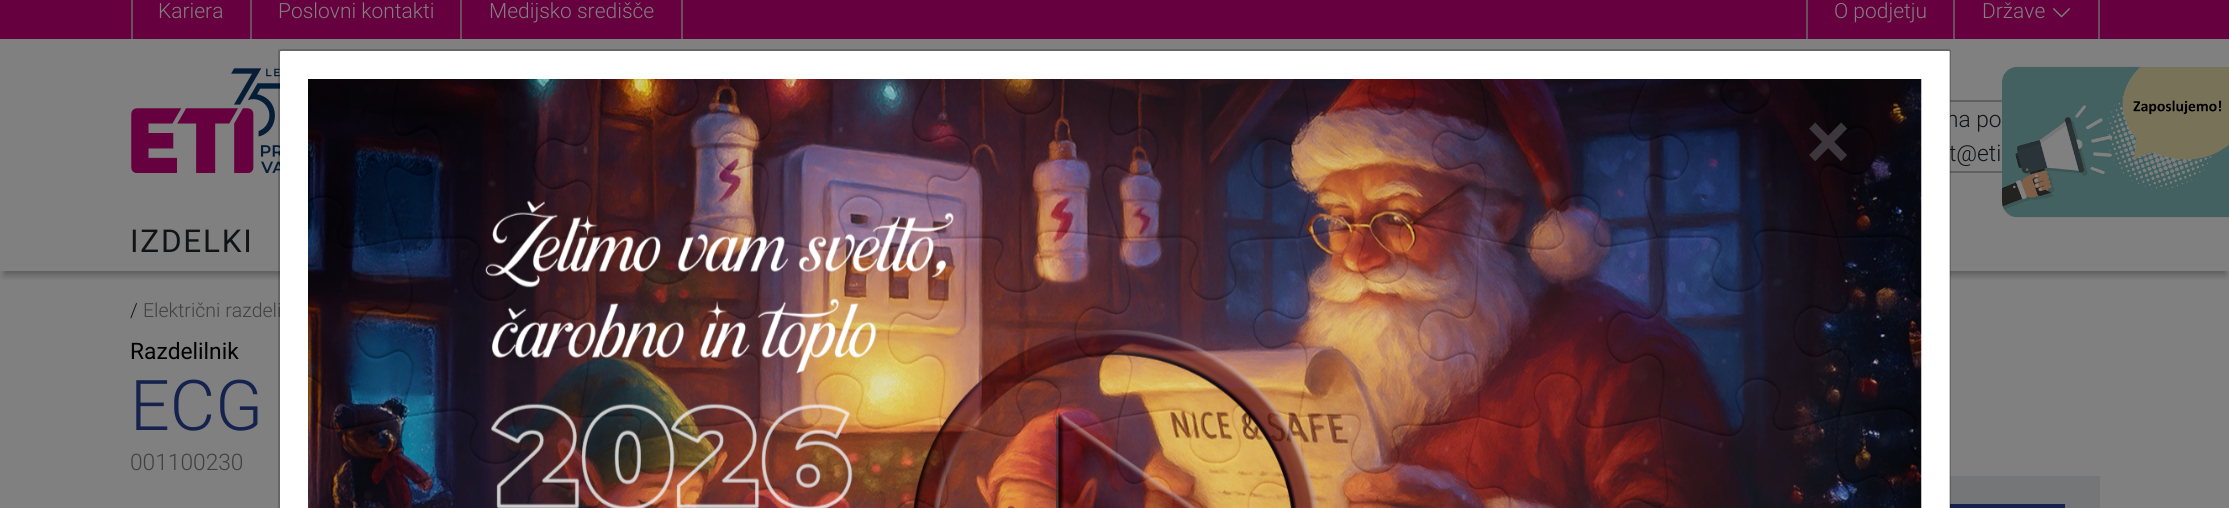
import math
import cairo

surface = cairo.ImageSurface(cairo.Format.RGB24, 2229, 508)
ctx = cairo.Context(surface)
options = cairo.FontOptions()
options.set_hint_metrics(cairo.HintMetrics.OFF)
options.set_hint_style(cairo.HintStyle.NONE)
ctx.set_font_options(options)
ctx.set_miter_limit(4)


def ink(r, g, b):
    ctx.set_source_rgb(r / 255, g / 255, b / 255)


def write(x, y, s, family, size, color, bold=False, italic=False):
    ctx.select_font_face(family, cairo.FontSlant.ITALIC if italic else cairo.FontSlant.NORMAL, cairo.FontWeight.BOLD if bold else cairo.FontWeight.NORMAL)
    ctx.set_font_size(size)
    ink(*color)
    ctx.move_to(x, y)
    ctx.show_text(s)


def write_spaced(x, y, s, letter, word):
    ctx.move_to(x, y)
    for ch in s:
        ctx.show_text(ch)
        ctx.rel_move_to(letter + word * (ch == ' '), 0)


def block(x, y, w, h, *color):
    ink(*color)
    ctx.rectangle(x, y, w, h)
    ctx.fill()


def round_path(x, y, w, h, r):
    ctx.new_sub_path()
    for i, (u, v) in enumerate([(x + w - r, y + h - r), (x + r, y + h - r), (x + r, y + r), (x + w - r, y + r)]):
        ctx.arc(u, v, r, i * math.pi / 2, (i + 1) * math.pi / 2)
    ctx.close_path()


def blur_box(x, y, w, h, r, blur, alpha):
    ctx.push_group_with_content(cairo.Content.ALPHA)
    ctx.set_operator(cairo.Operator.SOURCE)
    for i in range(15, -16, -2):
        e = blur * i / 6
        if min(w, h) + 2 * e > 0:
            ctx.set_source_rgba(0, 0, 0, alpha * math.erfc((i - 1) / 8.5) / 2)
            round_path(x - e, y - e, w + 2 * e, h + 2 * e, max(0, min(r + e + blur * .6, min(w, h) / 2 + e)))
            ctx.fill()
    ctx.mask(ctx.pop_group())


def paste(path, x, y, w, h):
    ctx.save()
    ctx.set_source_surface(cairo.ImageSurface.create_from_png(path), x, y)
    ctx.rectangle(x, y, w, h)
    ctx.fill()
    ctx.restore()


s1 = dict(family="Roboto Light", size=21, color=(128, 128, 128))
s2 = dict(family="Roboto Light", size=22.75, color=(17, 19, 21))
s3 = dict(family="Roboto Light", size=19.5, color=(17, 19, 21))
s4 = dict(family="Roboto Light", size=19.5, color=(64, 64, 64))
s5 = dict(family="Roboto", size=22.75, color=(0, 0, 0))
s6 = dict(family="Roboto Light", size=70, color=(20, 34, 77))
s7 = dict(family="Roboto Light", size=22.75, color=(64, 64, 64))
s8 = dict(family="Roboto Medium", size=84, color=(60, 54, 61))

ink(128, 128, 128)
ctx.paint()
block(0, 0, 2229, 39, 102, 0, 62)
block(131, 0, 2, 39, 106, 77, 95)
write(158, 18, "Kariera", **s1)
block(250, 0, 2, 39, 106, 77, 95)
write(278, 18, "Poslovni kontakti", **s1)
block(681, 0, 2, 39, 106, 77, 95)
block(460, 0, 2, 39, 106, 77, 95)
write(489, 18, "Medijsko središče", **s1)
block(1953, 0, 2, 39, 106, 77, 95)
block(1806, 0, 2, 39, 106, 77, 95)
write(1834, 18, "O podjetju", **s1)
block(2098, 0, 2, 39, 106, 77, 95)
write(1982, 18, "Države", **s1)
paste("pic1.png", 2052, 8, 19, 10)
ctx.rectangle(1798, 101, 287, 71)
ink(96, 96, 96)
ctx.stroke()
paste("pic2.png", 2002, 66, 227, 152)
paste("pic3.png", 131, 68, 149, 105)
write(1946, 127, "na po", **s2)
write(1949, 161, "t@eti", **s2)
ctx.select_font_face("Roboto")
ctx.set_font_size(31.5)
write_spaced(130, 252, "IZDELKI", 1.75, 0)
ctx.save()
ctx.rectangle(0, 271, 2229, 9)
ctx.clip()
ink(6, 6, 6)
blur_box(4, 266, 2222, 9, 0, 3.5, 0.3)
ctx.restore()
write(130, 317, "/", **s3)
write(143, 317, "Električni razdeli", **s4)
write(130, 359, "Razdelilnik", **s5)
write(130, 430, "ECG", **s6)
write(130, 470, "001100230", **s7)
block(1950, 476, 150, 32, 117, 118, 120)
block(1950, 504, 115, 4, 20, 34, 77)
ink(255, 255, 255)
ctx.new_path()
ctx.move_to(281, 51)
ctx.line_to(1949, 51)
ctx.curve_to(1949.5, 51, 1950, 51.5, 1950, 52)
ctx.line_to(1950, 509)
ctx.line_to(280, 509)
ctx.line_to(280, 52)
ctx.curve_to(280, 51.5, 280.5, 51, 281, 51)
ctx.close_path()
ctx.fill()
round_path(279, 50, 1671, 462, 1.5)
ctx.set_source_rgba(0, 0, 0, 0.2)
ctx.stroke()
paste("pic4.png", 308, 79, 1614, 429)
write(1806, 170, "×", **s8)
surface.write_to_png("screenshot.png")
